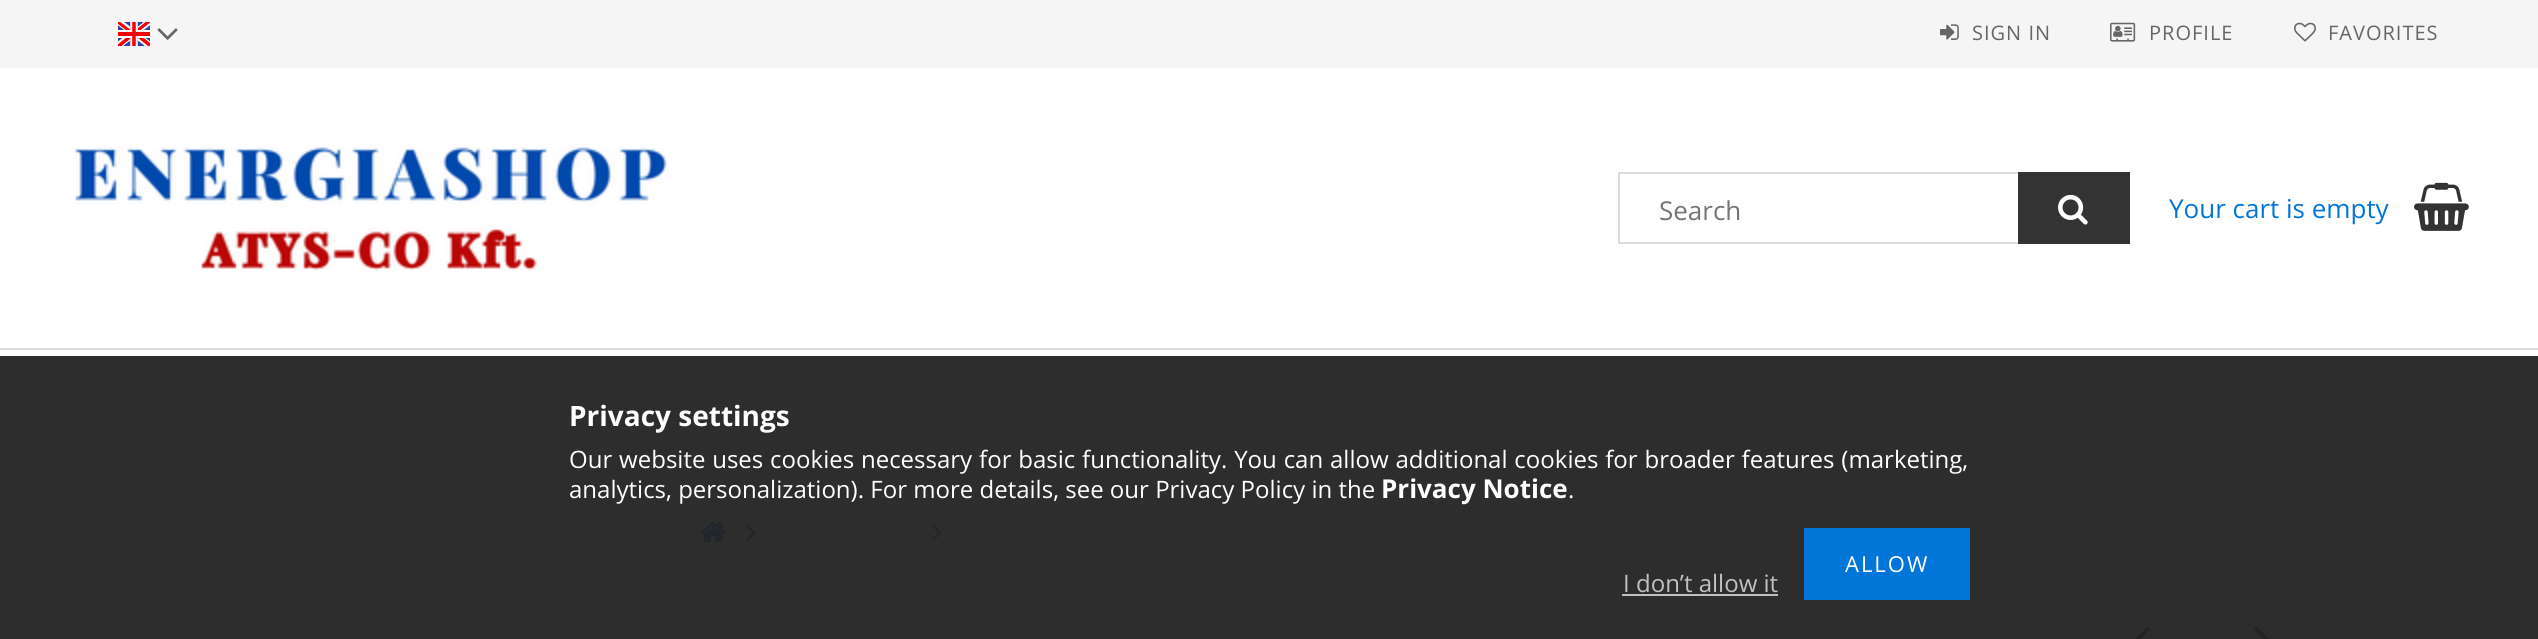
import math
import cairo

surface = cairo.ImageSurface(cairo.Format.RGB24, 2538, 639)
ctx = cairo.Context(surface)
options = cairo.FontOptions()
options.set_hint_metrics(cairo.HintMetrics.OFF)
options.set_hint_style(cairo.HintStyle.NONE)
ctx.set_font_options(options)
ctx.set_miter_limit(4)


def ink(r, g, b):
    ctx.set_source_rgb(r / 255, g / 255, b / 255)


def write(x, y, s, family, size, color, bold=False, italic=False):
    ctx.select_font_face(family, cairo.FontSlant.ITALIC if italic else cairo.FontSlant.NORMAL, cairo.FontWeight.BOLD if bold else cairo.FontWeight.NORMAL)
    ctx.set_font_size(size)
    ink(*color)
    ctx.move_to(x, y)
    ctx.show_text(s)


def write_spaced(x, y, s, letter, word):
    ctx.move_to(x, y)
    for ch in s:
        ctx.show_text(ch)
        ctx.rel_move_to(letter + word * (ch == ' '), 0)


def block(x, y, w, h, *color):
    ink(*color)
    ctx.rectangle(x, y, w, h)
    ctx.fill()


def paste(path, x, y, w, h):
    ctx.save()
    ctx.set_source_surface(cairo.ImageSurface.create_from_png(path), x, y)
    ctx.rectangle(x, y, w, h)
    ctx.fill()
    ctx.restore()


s1 = dict(family="Open Sans", size=26, color=(117, 117, 117))
s2 = dict(family="Open Sans", size=26, color=(2, 117, 216))
s3 = dict(family="Open Sans", size=28, color=(255, 255, 255), bold=True)
s4 = dict(family="Open Sans", size=24, color=(255, 255, 255))
s5 = dict(family="Open Sans", size=26, color=(255, 255, 255), bold=True)
s6 = dict(family="Open Sans", size=24, color=(192, 192, 192))

ink(255, 255, 255)
ctx.paint()
block(0, 356, 2538, 283, 45, 45, 45)
block(0, 0, 2538, 68, 245, 245, 245)
paste("pic1.png", 118, 22, 32, 24)
paste("pic2.png", 157, 28, 21, 12)
paste("pic3.png", 1940, 24, 19, 16)
ctx.select_font_face("Open Sans")
ctx.set_font_size(20)
ink(102, 102, 102)
write_spaced(1972, 40, "SIGN IN", 1, 0)
paste("pic4.png", 2110, 22, 26, 20)
write_spaced(2149, 40, "PROFILE", 1, 0)
paste("pic5.png", 2294, 22, 22, 20)
write_spaced(2328, 40, "FAVORITES", 1, 0)
paste("pic6.png", 74, 147, 596, 124)
ctx.rectangle(1619, 173, 510, 70)
ink(221, 221, 221)
ctx.stroke()
write(1659, 220, "Search", **s1)
block(2018, 172, 112, 72, 51, 51, 51)
paste("pic7.png", 2058, 194, 30, 31)
write(2169, 218, "Your cart is empty", **s2)
paste("pic8.png", 2414, 182, 55, 49)
block(0, 348, 2538, 2, 221, 221, 221)
paste("pic9.png", 700, 522, 26, 20)
paste("pic10.png", 746, 525, 10, 16)
paste("pic10.png", 932, 525, 10, 16)
paste("pic11.png", 2135, 626, 15, 13)
paste("pic12.png", 2254, 626, 15, 13)
write(569, 426, "Privacy settings", **s3)
ctx.select_font_face("Open Sans")
ctx.set_font_size(24)
write_spaced(569, 468, "Our website uses cookies necessary for basic functionality. You can allow additional cookies for broader features (marketing,", 0, 0.6)
write(569, 498, "analytics, personalization). For more details, see our Privacy Policy in the", **s4)
write(1381, 498, "Privacy Notice", **s5)
write(1568, 498, ".", **s4)
block(1804, 528, 166, 72, 2, 117, 216)
ctx.set_font_size(22)
ink(255, 255, 255)
write_spaced(1845, 572, "ALLOW", 2, 0)
write(1623, 592, "I don’t allow it", **s6)
block(1622, 594, 156, 2, 192, 192, 192)
surface.write_to_png("screenshot.png")
